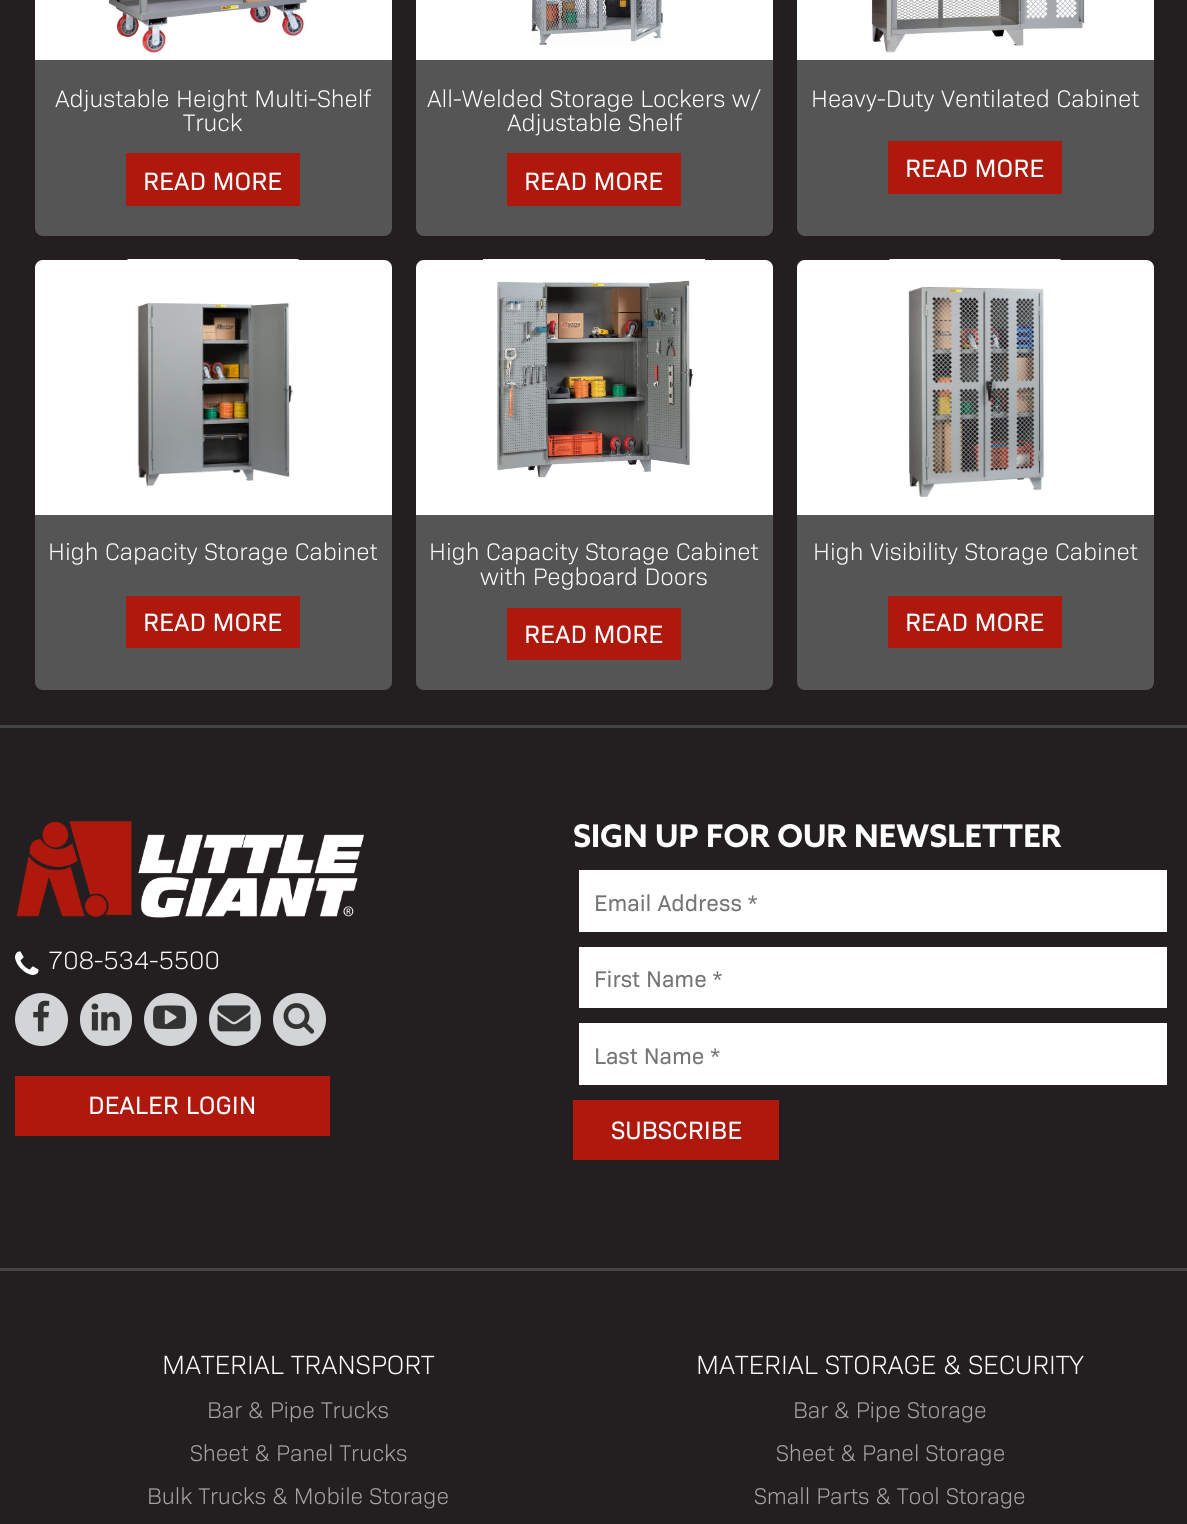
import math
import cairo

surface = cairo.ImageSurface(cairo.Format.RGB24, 1187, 1524)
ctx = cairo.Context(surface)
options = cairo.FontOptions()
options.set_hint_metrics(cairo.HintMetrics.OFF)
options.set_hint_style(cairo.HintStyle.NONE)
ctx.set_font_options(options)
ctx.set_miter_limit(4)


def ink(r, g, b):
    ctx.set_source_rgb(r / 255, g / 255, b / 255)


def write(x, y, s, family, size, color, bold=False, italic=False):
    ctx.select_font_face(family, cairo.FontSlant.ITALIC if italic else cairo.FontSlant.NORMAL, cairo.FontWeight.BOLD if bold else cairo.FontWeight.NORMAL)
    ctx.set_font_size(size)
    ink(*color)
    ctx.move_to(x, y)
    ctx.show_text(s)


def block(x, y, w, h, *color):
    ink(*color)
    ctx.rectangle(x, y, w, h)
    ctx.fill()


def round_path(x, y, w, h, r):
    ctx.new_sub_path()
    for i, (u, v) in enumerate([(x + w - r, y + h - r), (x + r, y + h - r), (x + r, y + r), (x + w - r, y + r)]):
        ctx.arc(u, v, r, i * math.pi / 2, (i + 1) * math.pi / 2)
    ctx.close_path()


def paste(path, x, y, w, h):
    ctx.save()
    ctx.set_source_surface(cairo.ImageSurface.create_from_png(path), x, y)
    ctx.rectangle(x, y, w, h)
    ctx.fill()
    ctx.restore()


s1 = dict(family="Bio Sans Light", size=24.25, color=(255, 255, 255))
s2 = dict(family="Bio Sans", size=25.5, color=(255, 255, 255))
s3 = dict(family="Bio Sans Light", size=25.5, color=(255, 255, 255))
s4 = dict(family="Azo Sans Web", size=31.25, color=(255, 255, 255), bold=True)
s5 = dict(family="Bio Sans", size=23, color=(117, 117, 117))
s6 = dict(family="Bio Sans Light", size=26.75, color=(255, 255, 255))
s7 = dict(family="Bio Sans Light", size=23, color=(167, 165, 166))

ink(35, 31, 32)
ctx.paint()
block(0, 725, 1187, 3, 68, 68, 68)
ink(85, 85, 85)
round_path(35, -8, 357, 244, 8)
ctx.fill()
block(35, 0, 357, 60, 255, 255, 255)
paste("pic1.png", 108, 0, 199, 54)
write(55, 107, "Adjustable Height Multi-Shelf", **s1)
write(183, 131, "Truck", **s1)
block(126, 153, 174, 53, 175, 24, 13)
write(143, 190, "READ MORE", **s2)
ink(85, 85, 85)
round_path(416, -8, 357, 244, 8)
ctx.fill()
block(416, 0, 357, 60, 255, 255, 255)
paste("pic2.png", 531, 0, 133, 45)
write(427, 107, "All-Welded Storage Lockers w/", **s1)
write(507, 131, "Adjustable Shelf", **s1)
block(507, 153, 174, 53, 175, 24, 13)
write(524, 190, "READ MORE", **s2)
ink(85, 85, 85)
round_path(797, -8, 357, 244, 8)
ctx.fill()
block(797, 0, 357, 60, 255, 255, 255)
paste("pic3.png", 871, 0, 214, 53)
write(811, 107, "Heavy-Duty Ventilated Cabinet", **s1)
block(888, 141, 174, 53, 175, 24, 13)
write(905, 177, "READ MORE", **s2)
ink(85, 85, 85)
round_path(35, 260, 357, 430, 8)
ctx.fill()
ink(255, 255, 255)
ctx.new_path()
ctx.move_to(43, 260)
ctx.line_to(384, 260)
ctx.curve_to(388.5, 260, 392, 263.5, 392, 268)
ctx.line_to(392, 515)
ctx.line_to(35, 515)
ctx.line_to(35, 268)
ctx.curve_to(35, 263.5, 38.5, 260, 43, 260)
ctx.close_path()
ctx.fill()
paste("pic4.png", 127, 259, 172, 227)
write(48, 560, "High Capacity Storage Cabinet", **s1)
block(126, 596, 174, 52, 175, 24, 13)
write(143, 631, "READ MORE", **s2)
ink(85, 85, 85)
round_path(416, 260, 357, 430, 8)
ctx.fill()
ink(255, 255, 255)
ctx.new_path()
ctx.move_to(424, 260)
ctx.line_to(765, 260)
ctx.curve_to(769.5, 260, 773, 263.5, 773, 268)
ctx.line_to(773, 515)
ctx.line_to(416, 515)
ctx.line_to(416, 268)
ctx.curve_to(416, 263.5, 419.5, 260, 424, 260)
ctx.close_path()
ctx.fill()
paste("pic5.png", 483, 259, 222, 219)
write(429, 560, "High Capacity Storage Cabinet", **s1)
write(480, 585, "with Pegboard Doors", **s1)
block(507, 608, 174, 52, 175, 24, 13)
write(524, 643, "READ MORE", **s2)
ink(85, 85, 85)
round_path(797, 260, 357, 430, 8)
ctx.fill()
ink(255, 255, 255)
ctx.new_path()
ctx.move_to(805, 260)
ctx.line_to(1146, 260)
ctx.curve_to(1150.5, 260, 1154, 263.5, 1154, 268)
ctx.line_to(1154, 515)
ctx.line_to(797, 515)
ctx.line_to(797, 268)
ctx.curve_to(797, 263.5, 800.5, 260, 805, 260)
ctx.close_path()
ctx.fill()
paste("pic6.png", 889, 259, 172, 239)
write(813, 560, "High Visibility Storage Cabinet", **s1)
block(888, 596, 174, 52, 175, 24, 13)
write(905, 631, "READ MORE", **s2)
block(0, 1268, 1187, 3, 68, 68, 68)
paste("pic7.png", 16, 821, 348, 97)
paste("pic8.png", 15, 951, 24, 24)
write(48, 969, "708-534-5500", **s3)
ink(211, 212, 214)
ctx.new_path()
ctx.arc(41.5, 1019.5, 26.5, 0, 2 * math.pi)
ctx.fill()
paste("pic9.png", 33, 1000, 17, 32)
round_path(80, 993, 52, 53, 26)
ctx.fill()
paste("pic10.png", 91, 1003, 29, 28)
ctx.arc(170.5, 1019.5, 26.5, 0, 2 * math.pi)
ctx.fill()
paste("pic11.png", 153, 1005, 33, 24)
round_path(209, 993, 52, 53, 26)
ctx.fill()
paste("pic12.png", 217, 1005, 34, 27)
ctx.arc(299.5, 1019.5, 26.5, 0, 2 * math.pi)
ctx.fill()
paste("pic13.png", 283, 1003, 32, 31)
block(15, 1076, 315, 60, 175, 24, 13)
write(88, 1114, "DEALER LOGIN", **s2)
write(573, 847, "SIGN UP FOR OUR NEWSLETTER", **s4)
block(579, 870, 588, 62, 255, 255, 255)
write(594, 911, "Email Address *", **s5)
block(579, 947, 588, 61, 255, 255, 255)
write(594, 987, "First Name *", **s5)
block(579, 1023, 588, 62, 255, 255, 255)
write(594, 1064, "Last Name *", **s5)
block(573, 1100, 206, 60, 175, 24, 13)
write(611, 1139, "SUBSCRIBE", **s2)
write(162, 1374, "MATERIAL TRANSPORT", **s6)
write(207, 1418, "Bar & Pipe Trucks", **s7)
write(190, 1461, "Sheet & Panel Trucks", **s7)
write(147, 1504, "Bulk Trucks & Mobile Storage", **s7)
write(696, 1374, "MATERIAL STORAGE & SECURITY", **s6)
write(793, 1418, "Bar & Pipe Storage", **s7)
write(776, 1461, "Sheet & Panel Storage", **s7)
write(754, 1504, "Small Parts & Tool Storage", **s7)
surface.write_to_png("screenshot.png")
